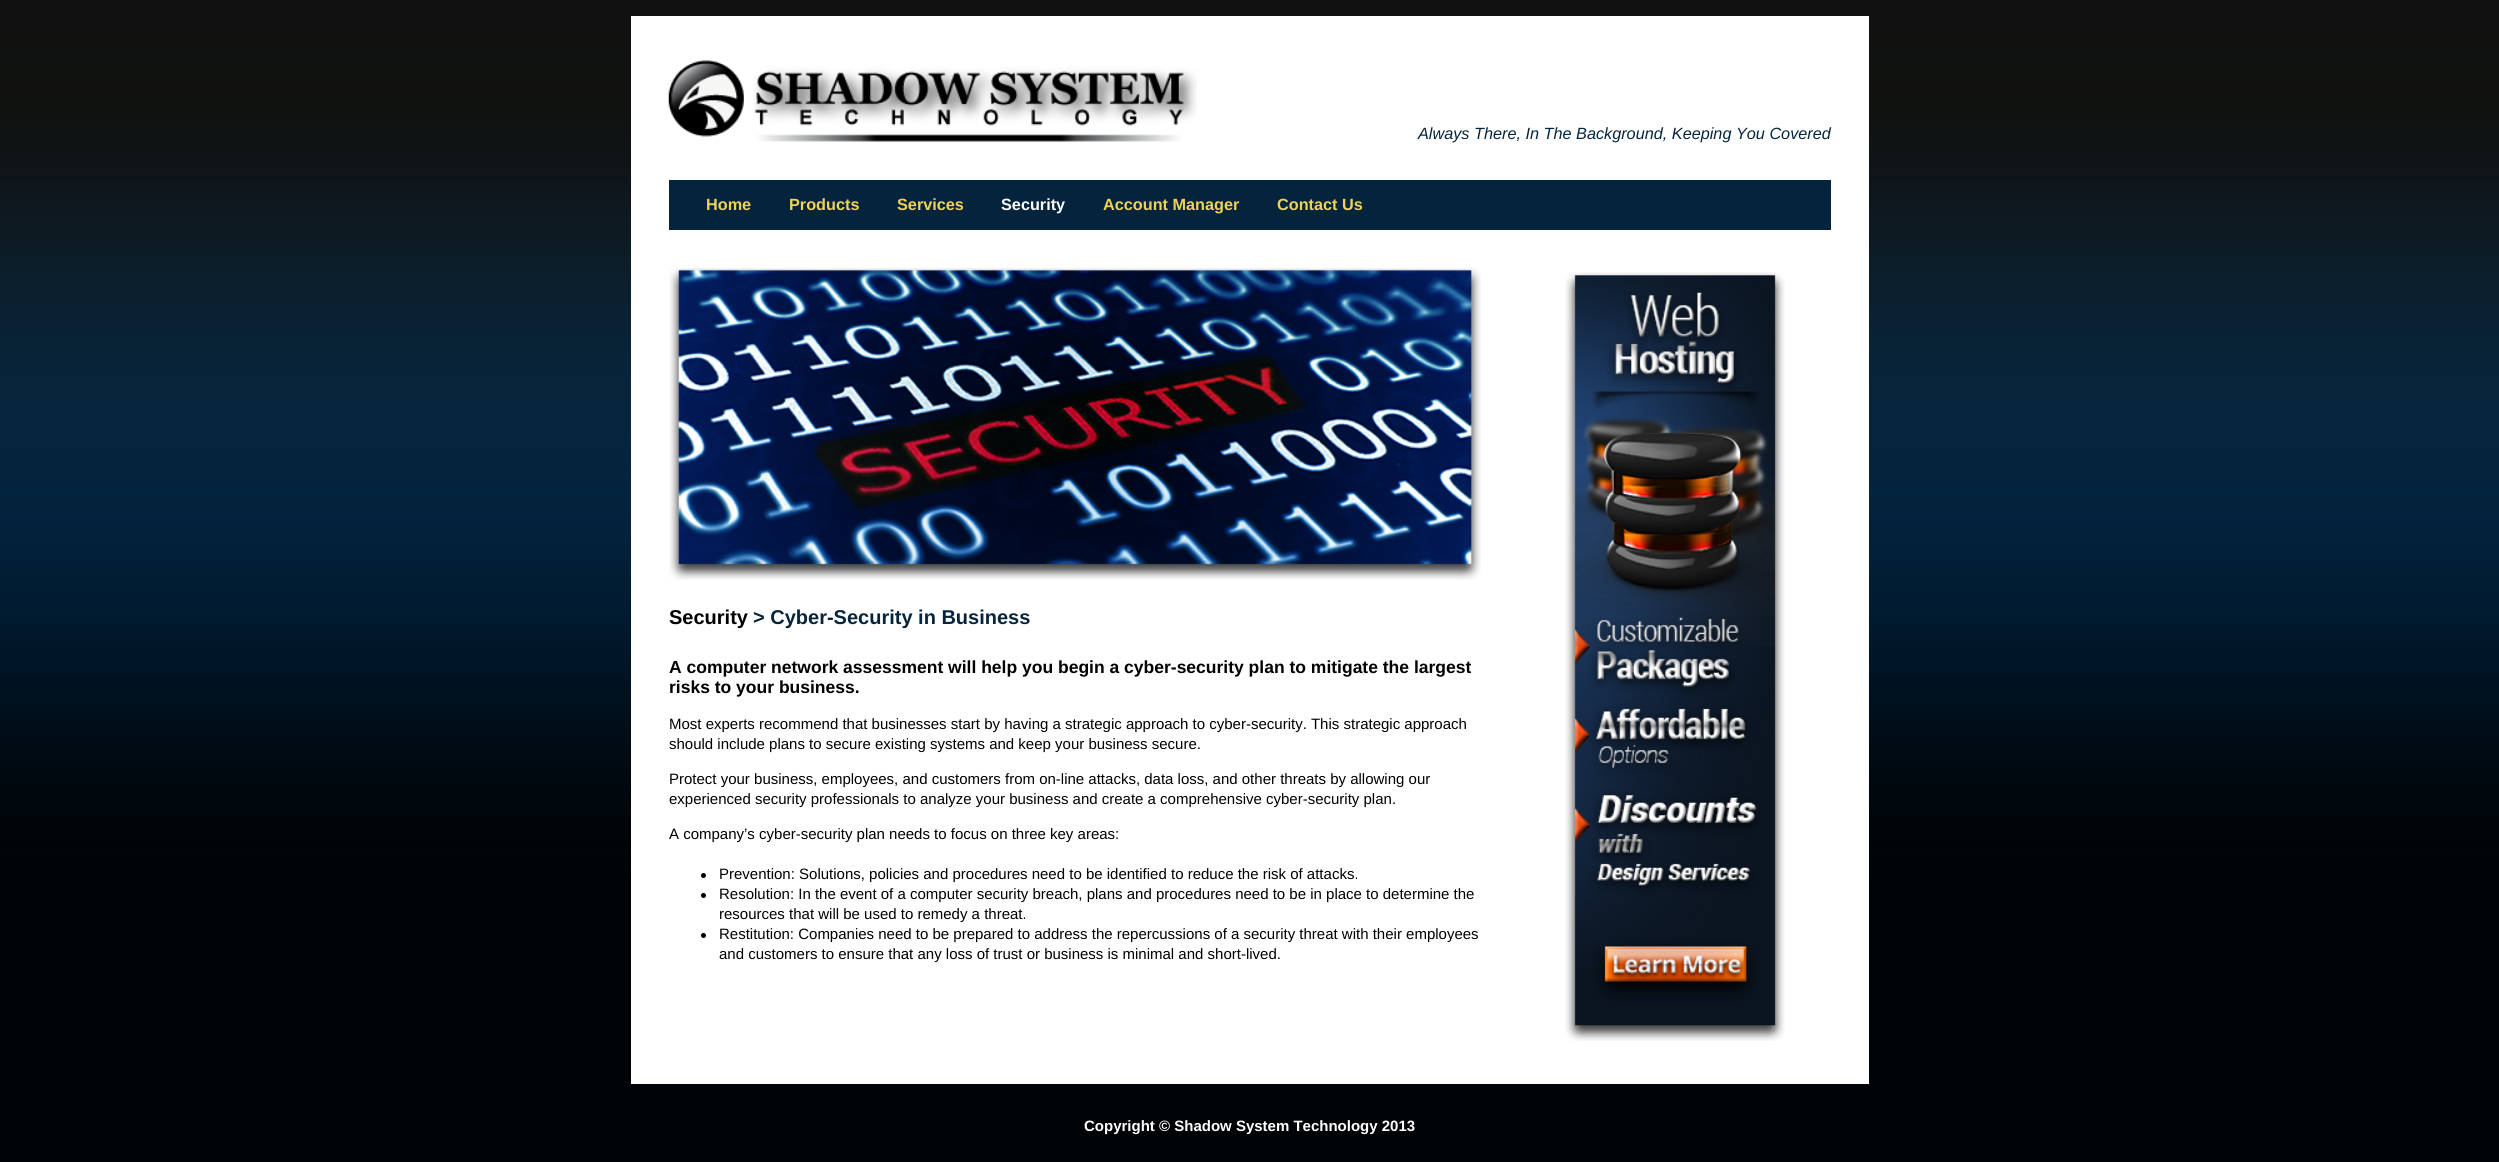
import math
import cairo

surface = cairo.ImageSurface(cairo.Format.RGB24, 2499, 1162)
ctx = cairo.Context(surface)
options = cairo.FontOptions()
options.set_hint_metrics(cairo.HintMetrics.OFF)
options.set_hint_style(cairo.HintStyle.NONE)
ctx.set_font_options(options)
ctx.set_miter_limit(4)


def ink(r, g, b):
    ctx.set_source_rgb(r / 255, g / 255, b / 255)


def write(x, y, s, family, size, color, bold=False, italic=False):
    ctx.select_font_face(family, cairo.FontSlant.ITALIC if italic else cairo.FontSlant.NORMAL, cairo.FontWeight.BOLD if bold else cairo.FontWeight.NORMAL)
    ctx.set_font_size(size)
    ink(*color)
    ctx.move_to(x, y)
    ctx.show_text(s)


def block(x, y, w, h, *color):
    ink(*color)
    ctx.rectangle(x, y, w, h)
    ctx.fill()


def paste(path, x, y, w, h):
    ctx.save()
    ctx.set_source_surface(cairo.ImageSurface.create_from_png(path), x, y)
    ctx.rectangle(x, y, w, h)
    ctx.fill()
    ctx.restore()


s1 = dict(family="Liberation Sans", size=16.25, color=(6, 37, 61), italic=True)
s2 = dict(family="Liberation Sans", size=16.25, color=(240, 211, 86), bold=True)
s3 = dict(family="Liberation Sans", size=16.25, color=(255, 255, 255), bold=True)
s4 = dict(family="Liberation Sans", size=20, color=(0, 0, 0), bold=True)
s5 = dict(family="Liberation Sans", size=20, color=(6, 37, 61), bold=True)
s6 = dict(family="Liberation Sans", size=17.5, color=(0, 0, 0), bold=True)
s7 = dict(family="Liberation Sans", size=15, color=(0, 0, 0))
s8 = dict(family="Liberation Sans", size=15, color=(255, 255, 255), bold=True)

ink(255, 255, 255)
ctx.paint()
paste("pic1.png", 0, 0, 2499, 1162)
block(631, 16, 1238, 1068, 255, 255, 255)
paste("pic2.png", 668, 60, 529, 82)
write(1418, 139, "Always There, In The Background, Keeping You Covered", **s1)
block(669, 180, 1162, 50, 4, 36, 61)
write(706, 210, "Home", **s2)
write(789, 210, "Products", **s2)
write(897, 210, "Services", **s2)
write(1001, 210, "Security", **s3)
write(1103, 210, "Account Manager", **s2)
write(1277, 210, "Contact Us", **s2)
paste("pic3.png", 669, 268, 812, 312)
write(669, 624, "Security", **s4)
write(753, 624, "> Cyber-Security in Business", **s5)
write(669, 673, "A computer network assessment will help you begin a cyber-security plan to mitigate the largest", **s6)
write(669, 693, "risks to your business.", **s6)
write(669, 729, "Most experts recommend that businesses start by having a strategic approach to cyber-security. This strategic approach", **s7)
write(669, 749, "should include plans to secure existing systems and keep your business secure.", **s7)
write(669, 784, "Protect your business, employees, and customers from on-line attacks, data loss, and other threats by allowing our", **s7)
write(669, 804, "experienced security professionals to analyze your business and create a comprehensive cyber-security plan.", **s7)
write(669, 839, "A company’s cyber-security plan needs to focus on three key areas:", **s7)
ctx.new_path()
ctx.arc(703.5, 875.5, 2.5, 0, 2 * math.pi)
ctx.fill()
write(719, 879, "Prevention: Solutions, policies and procedures need to be identified to reduce the risk of attacks.", **s7)
ctx.new_path()
ctx.arc(703.5, 895.5, 2.5, 0, 2 * math.pi)
ctx.fill()
write(719, 899, "Resolution: In the event of a computer security breach, plans and procedures need to be in place to determine the", **s7)
write(719, 919, "resources that will be used to remedy a threat.", **s7)
ctx.new_path()
ctx.arc(703.5, 935.5, 2.5, 0, 2 * math.pi)
ctx.fill()
write(719, 939, "Restitution: Companies need to be prepared to address the repercussions of a security threat with their employees", **s7)
write(719, 959, "and customers to ensure that any loss of trust or business is minimal and short-lived.", **s7)
paste("pic4.png", 1565, 272, 220, 769)
write(1084, 1131, "Copyright © Shadow System Technology 2013", **s8)
surface.write_to_png("screenshot.png")
